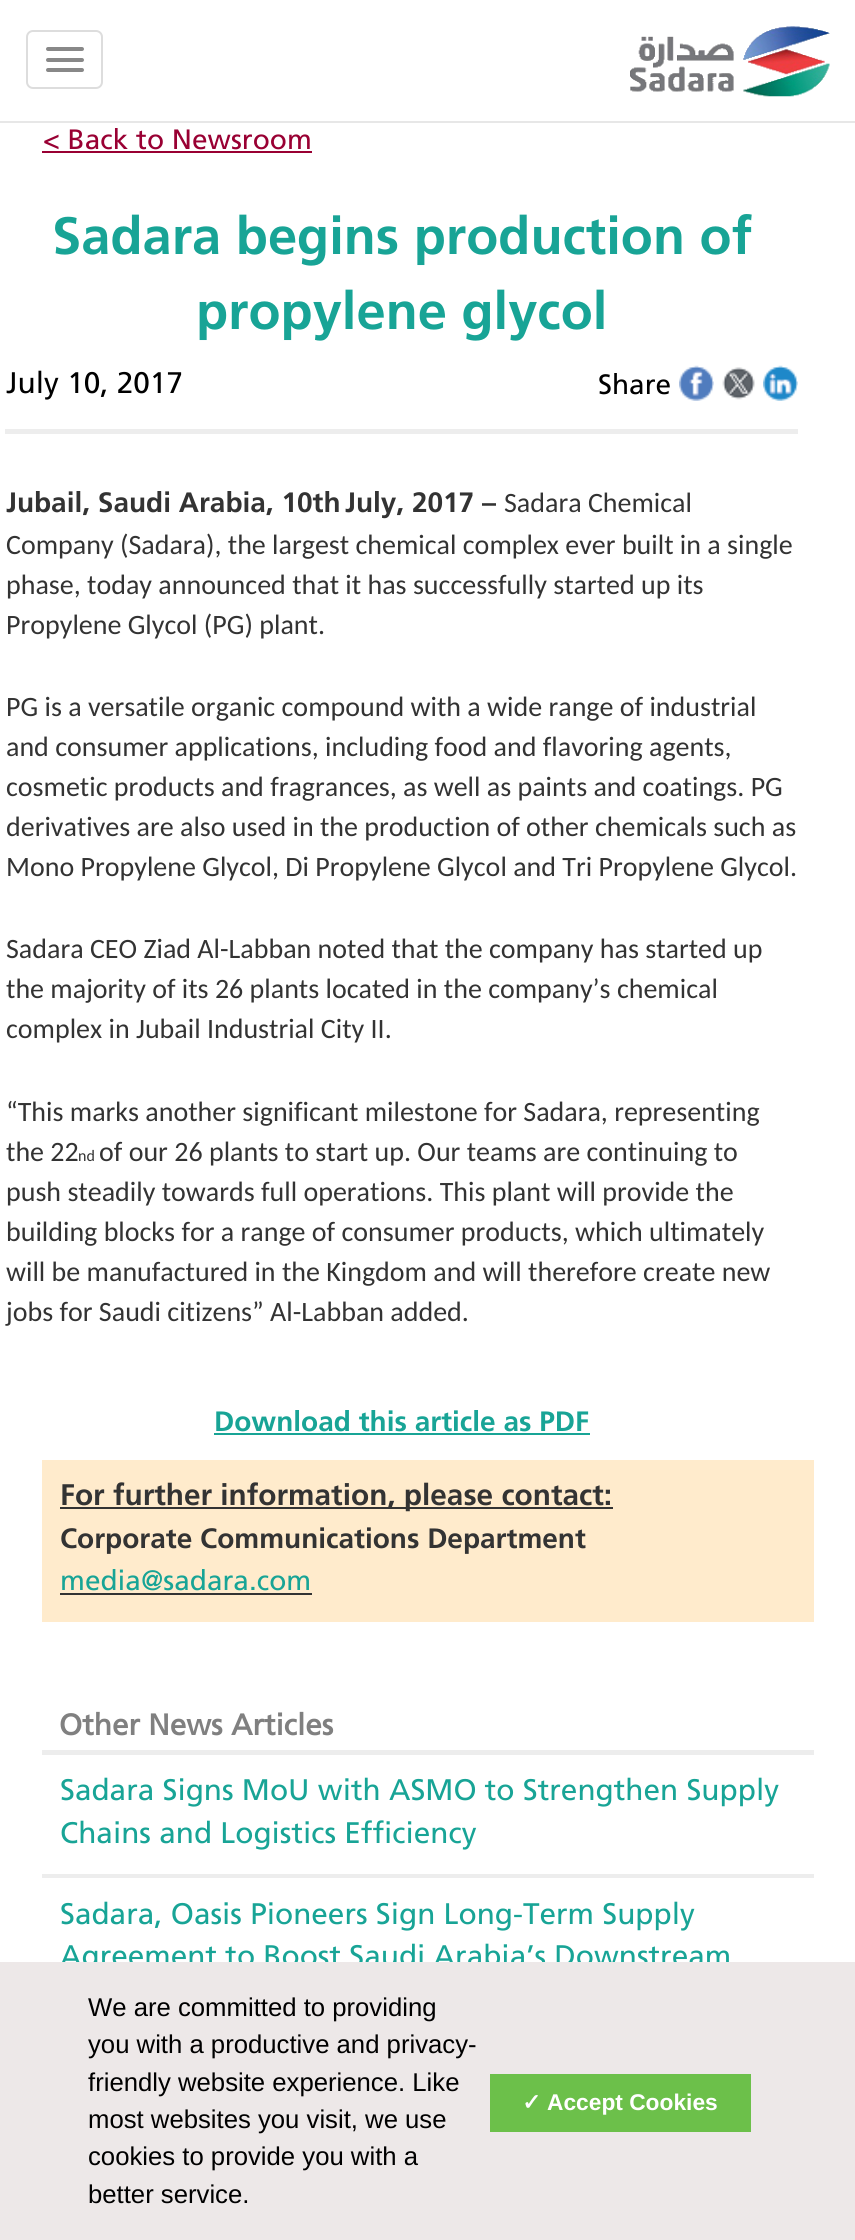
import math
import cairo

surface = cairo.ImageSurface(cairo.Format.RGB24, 855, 2240)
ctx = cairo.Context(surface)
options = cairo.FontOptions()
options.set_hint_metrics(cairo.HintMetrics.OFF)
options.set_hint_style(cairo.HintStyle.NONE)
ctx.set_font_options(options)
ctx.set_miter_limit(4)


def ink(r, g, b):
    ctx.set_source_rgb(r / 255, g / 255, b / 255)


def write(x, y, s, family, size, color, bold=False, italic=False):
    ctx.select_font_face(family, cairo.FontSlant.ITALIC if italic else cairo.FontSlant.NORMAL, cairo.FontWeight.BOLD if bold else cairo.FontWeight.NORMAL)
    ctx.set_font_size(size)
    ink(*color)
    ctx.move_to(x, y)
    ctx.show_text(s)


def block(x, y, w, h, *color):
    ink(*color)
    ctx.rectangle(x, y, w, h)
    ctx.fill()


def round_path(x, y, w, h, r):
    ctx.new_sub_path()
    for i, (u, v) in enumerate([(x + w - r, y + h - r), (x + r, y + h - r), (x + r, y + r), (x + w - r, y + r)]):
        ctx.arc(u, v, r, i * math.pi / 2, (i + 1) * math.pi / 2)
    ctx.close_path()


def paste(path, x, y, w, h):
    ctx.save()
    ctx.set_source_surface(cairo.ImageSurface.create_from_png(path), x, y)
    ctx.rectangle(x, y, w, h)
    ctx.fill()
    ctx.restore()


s1 = dict(family="Frutiger", size=28, color=(153, 0, 51))
s2 = dict(family="Frutiger", size=52.5, color=(24, 164, 150), bold=True)
s3 = dict(family="Frutiger", size=29.75, color=(0, 0, 0))
s4 = dict(family="Frutiger", size=28, color=(0, 0, 0))
s5 = dict(family="Frutiger", size=28, color=(51, 51, 51), bold=True)
s6 = dict(family="Carlito", size=28, color=(51, 51, 51))
s7 = dict(family="Carlito", size=16, color=(51, 51, 51))
s8 = dict(family="Frutiger", size=28, color=(24, 164, 150), bold=True)
s9 = dict(family="Frutiger", size=29.75, color=(51, 51, 51), bold=True)
s10 = dict(family="Frutiger", size=28, color=(24, 164, 150))
s11 = dict(family="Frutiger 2", size=29.75, color=(128, 128, 128), bold=True)
s12 = dict(family="Frutiger", size=29.75, color=(24, 164, 150))
s13 = dict(family="Liberation Sans", size=25.7, color=(0, 0, 0))
s14 = dict(family="DejaVu Sans", size=22.75, color=(255, 255, 255), bold=True)
s15 = dict(family="Liberation Sans", size=22.75, color=(255, 255, 255), bold=True)

ink(255, 255, 255)
ctx.paint()
block(0, 121, 855, 2, 231, 231, 231)
round_path(27, 31, 75, 57, 6)
ink(221, 221, 221)
ctx.stroke()
ink(136, 136, 136)
round_path(46, 47, 38, 4, 2)
ctx.fill()
round_path(46, 58, 38, 4, 2)
ctx.fill()
round_path(46, 68, 38, 4, 2)
ctx.fill()
paste("pic1.png", 630, 26, 200, 71)
write(43, 149, "< Back to Newsroom", **s1)
block(42, 151, 270, 2, 153, 0, 51)
block(5, 429, 793, 5, 237, 237, 237)
write(52, 254, "Sadara begins production of", **s2)
write(196, 329, "propylene glycol", **s2)
write(6, 393, "July 10, 2017", **s3)
write(598, 394, "Share", **s4)
paste("pic2.png", 679, 365, 35, 36)
paste("pic3.png", 722, 367, 33, 33)
paste("pic4.png", 763, 365, 35, 36)
write(6, 512, "Jubail, Saudi Arabia, 10th", **s5)
write(345, 512, "July, 2017 –", **s5)
write(504, 512, "Sadara Chemical", **s6)
write(6, 554, "Company (Sadara), the largest chemical complex ever built in a single", **s6)
write(6, 594, "phase, today announced that it has successfully started up its", **s6)
write(6, 634, "Propylene Glycol (PG) plant.", **s6)
write(6, 716, "PG is a versatile organic compound with a wide range of industrial", **s6)
write(6, 756, "and consumer applications, including food and flavoring agents,", **s6)
write(6, 796, "cosmetic products and fragrances, as well as paints and coatings. PG", **s6)
write(6, 836, "derivatives are also used in the production of other chemicals such as", **s6)
write(6, 876, "Mono Propylene Glycol, Di Propylene Glycol and Tri Propylene Glycol.", **s6)
write(6, 958, "Sadara CEO Ziad Al-Labban noted that the company has started up", **s6)
write(6, 998, "the majority of its 26 plants located in the company’s chemical", **s6)
write(6, 1038, "complex in Jubail Industrial City II.", **s6)
write(6, 1121, "“This marks another significant milestone for Sadara, representing", **s6)
write(6, 1161, "the 22", **s6)
write(78, 1161, "nd", **s7)
write(99, 1161, "of our 26 plants to start up. Our teams are continuing to", **s6)
write(6, 1201, "push steadily towards full operations. This plant will provide the", **s6)
write(6, 1241, "building blocks for a range of consumer products, which ultimately", **s6)
write(6, 1281, "will be manufactured in the Kingdom and will therefore create new", **s6)
write(6, 1321, "jobs for Saudi citizens” Al-Labban added.", **s6)
write(214, 1431, "Download this article as PDF", **s8)
block(214, 1433, 376, 2, 24, 164, 150)
block(42, 1460, 772, 162, 255, 235, 204)
block(60, 1507, 553, 2, 51, 51, 51)
write(60, 1505, "For further information, please contact:", **s9)
write(60, 1548, "Corporate Communications Department", **s5)
write(60, 1590, "media@sadara.com", **s10)
block(60, 1593, 252, 2, 51, 51, 51)
block(42, 1750, 772, 5, 237, 237, 237)
write(59, 1735, "Other News Articles", **s11)
block(42, 1874, 772, 4, 237, 237, 237)
write(60, 1800, "Sadara Signs MoU with ASMO to Strengthen Supply", **s12)
write(60, 1843, "Chains and Logistics Efficiency", **s12)
write(60, 1924, "Sadara, Oasis Pioneers Sign Long-Term Supply", **s12)
write(60, 1966, "Agreement to Boost Saudi Arabia’s Downstream", **s12)
block(0, 1962, 855, 278, 237, 232, 232)
write(88, 2016, "We are committed to providing", **s13)
write(88, 2053, "you with a productive and privacy-", **s13)
write(88, 2091, "friendly website experience. Like", **s13)
write(88, 2128, "most websites you visit, we use", **s13)
write(88, 2165, "cookies to provide you with a", **s13)
write(88, 2203, "better service.", **s13)
block(490, 2074, 261, 58, 108, 192, 74)
write(522, 2110, "✓", **s14)
write(547, 2110, "Accept Cookies", **s15)
surface.write_to_png("screenshot.png")
